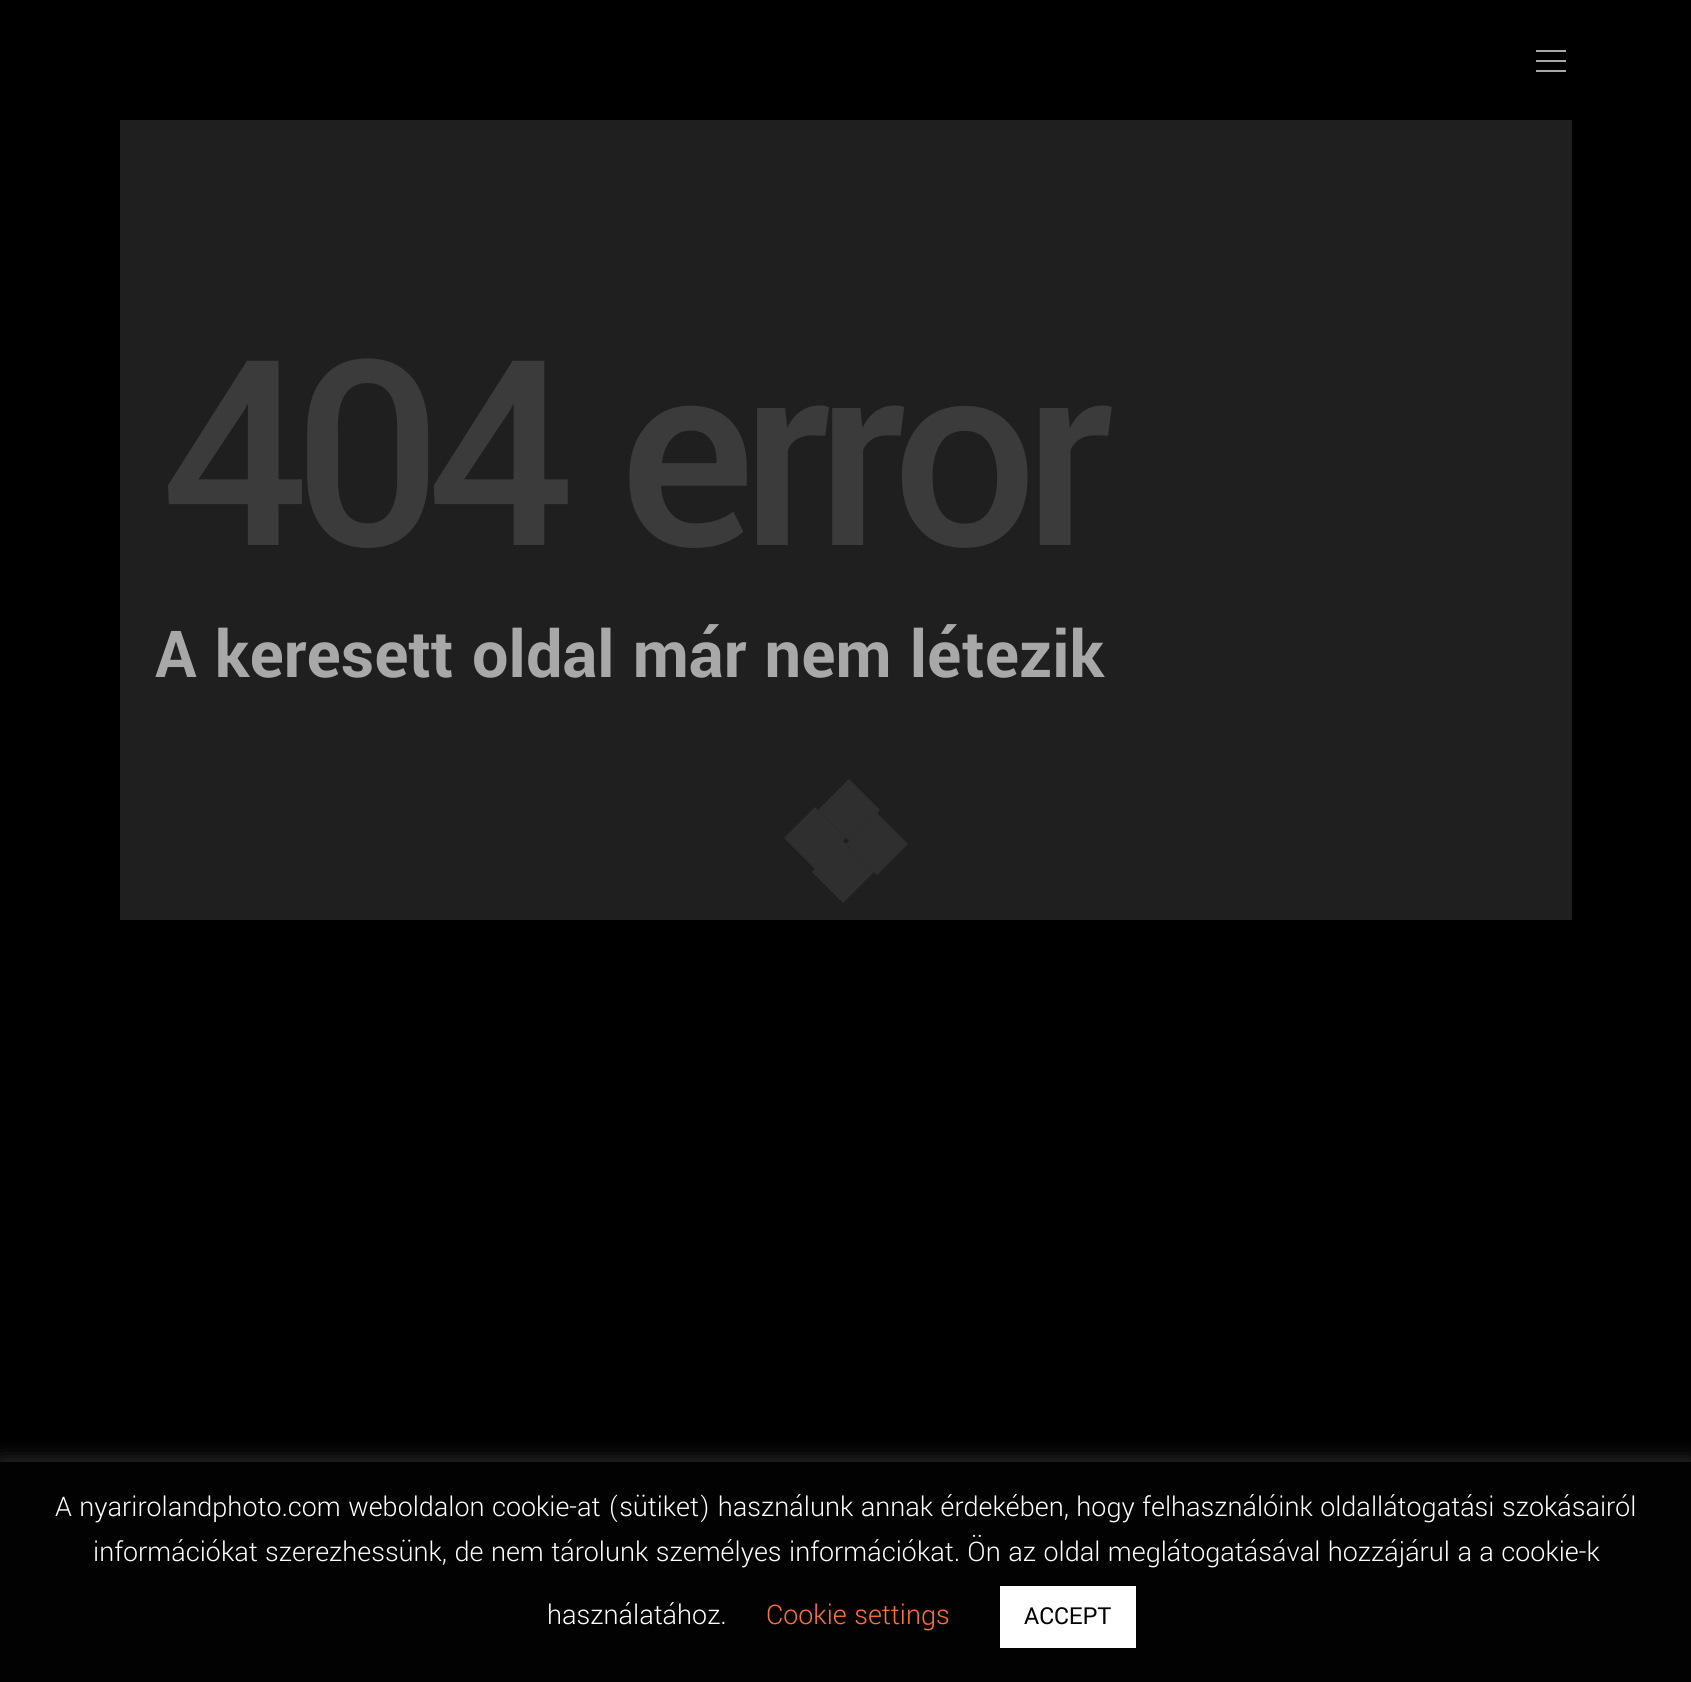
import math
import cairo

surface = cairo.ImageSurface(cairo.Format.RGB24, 1691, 1682)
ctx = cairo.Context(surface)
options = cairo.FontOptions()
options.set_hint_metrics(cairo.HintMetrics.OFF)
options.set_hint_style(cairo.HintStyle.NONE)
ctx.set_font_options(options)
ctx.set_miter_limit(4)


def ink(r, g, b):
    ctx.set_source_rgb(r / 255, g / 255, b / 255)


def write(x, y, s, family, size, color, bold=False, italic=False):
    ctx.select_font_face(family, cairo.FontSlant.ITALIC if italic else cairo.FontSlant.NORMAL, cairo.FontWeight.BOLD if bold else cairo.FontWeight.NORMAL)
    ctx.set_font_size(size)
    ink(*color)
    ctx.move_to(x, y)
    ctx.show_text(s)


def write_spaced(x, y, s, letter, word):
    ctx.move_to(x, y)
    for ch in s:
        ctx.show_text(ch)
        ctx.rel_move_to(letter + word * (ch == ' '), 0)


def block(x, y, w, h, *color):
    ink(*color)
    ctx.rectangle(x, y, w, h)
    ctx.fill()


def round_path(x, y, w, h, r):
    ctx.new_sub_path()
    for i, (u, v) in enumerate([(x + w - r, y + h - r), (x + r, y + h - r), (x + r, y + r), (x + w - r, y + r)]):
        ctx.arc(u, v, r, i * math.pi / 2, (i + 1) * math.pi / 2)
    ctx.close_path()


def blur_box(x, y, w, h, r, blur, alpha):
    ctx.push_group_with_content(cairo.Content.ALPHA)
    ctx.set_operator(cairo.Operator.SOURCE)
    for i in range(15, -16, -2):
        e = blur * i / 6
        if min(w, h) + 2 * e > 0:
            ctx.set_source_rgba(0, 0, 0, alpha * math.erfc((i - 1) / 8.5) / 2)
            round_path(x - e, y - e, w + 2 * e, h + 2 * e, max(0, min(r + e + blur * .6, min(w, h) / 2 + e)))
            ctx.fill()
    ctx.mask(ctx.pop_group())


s1 = dict(family="Yantramanav", size=72, color=(168, 168, 168), bold=True)
s2 = dict(family="Yantramanav Light", size=30, color=(255, 255, 255))
s3 = dict(family="Yantramanav Light", size=30, color=(255, 114, 58))
s4 = dict(family="Yantramanav", size=26, color=(2, 2, 2))

ink(0, 0, 0)
ctx.paint()
block(1536, 50, 30, 2, 168, 168, 168)
block(1536, 60, 30, 2, 168, 168, 168)
block(1536, 70, 30, 2, 168, 168, 168)
block(120, 120, 1452, 800, 31, 31, 31)
ctx.select_font_face("Yantramanav Medium")
ctx.set_font_size(288)
ink(59, 59, 59)
write_spaced(161, 545, "404 error", -14.5, 0)
write(155, 677, "A keresett oldal már nem létezik", **s1)
ink(47, 47, 47)
ctx.new_path()
ctx.move_to(908, 844)
ctx.line_to(877, 813)
ctx.line_to(846, 844)
ctx.line_to(877, 875)
ctx.close_path()
ctx.fill()
ctx.new_path()
ctx.move_to(849, 779)
ctx.line_to(818, 810)
ctx.line_to(849, 841)
ctx.line_to(880, 810)
ctx.close_path()
ctx.fill()
ctx.new_path()
ctx.move_to(843, 903)
ctx.line_to(874, 872)
ctx.line_to(843, 841)
ctx.line_to(812, 872)
ctx.close_path()
ctx.fill()
ctx.new_path()
ctx.move_to(784, 838)
ctx.line_to(815, 869)
ctx.line_to(846, 838)
ctx.line_to(815, 807)
ctx.close_path()
ctx.fill()
ink(172, 171, 171)
blur_box(0, 1460, 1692, 220, 0, 10, 0.3)
block(0, 1462, 1691, 220, 2, 2, 2)
write(55, 1516, "A nyarirolandphoto.com weboldalon cookie-at (sütiket) használunk annak érdekében, hogy felhasználóink oldallátogatási szokásairól", **s2)
write(93, 1561, "információkat szerezhessünk, de nem tárolunk személyes információkat. Ön az oldal meglátogatásával hozzájárul a a cookie-k", **s2)
write(547, 1624, "használatához.", **s2)
write(766, 1624, "Cookie settings", **s3)
block(1000, 1586, 136, 62, 255, 255, 255)
write(1024, 1624, "ACCEPT", **s4)
surface.write_to_png("screenshot.png")
